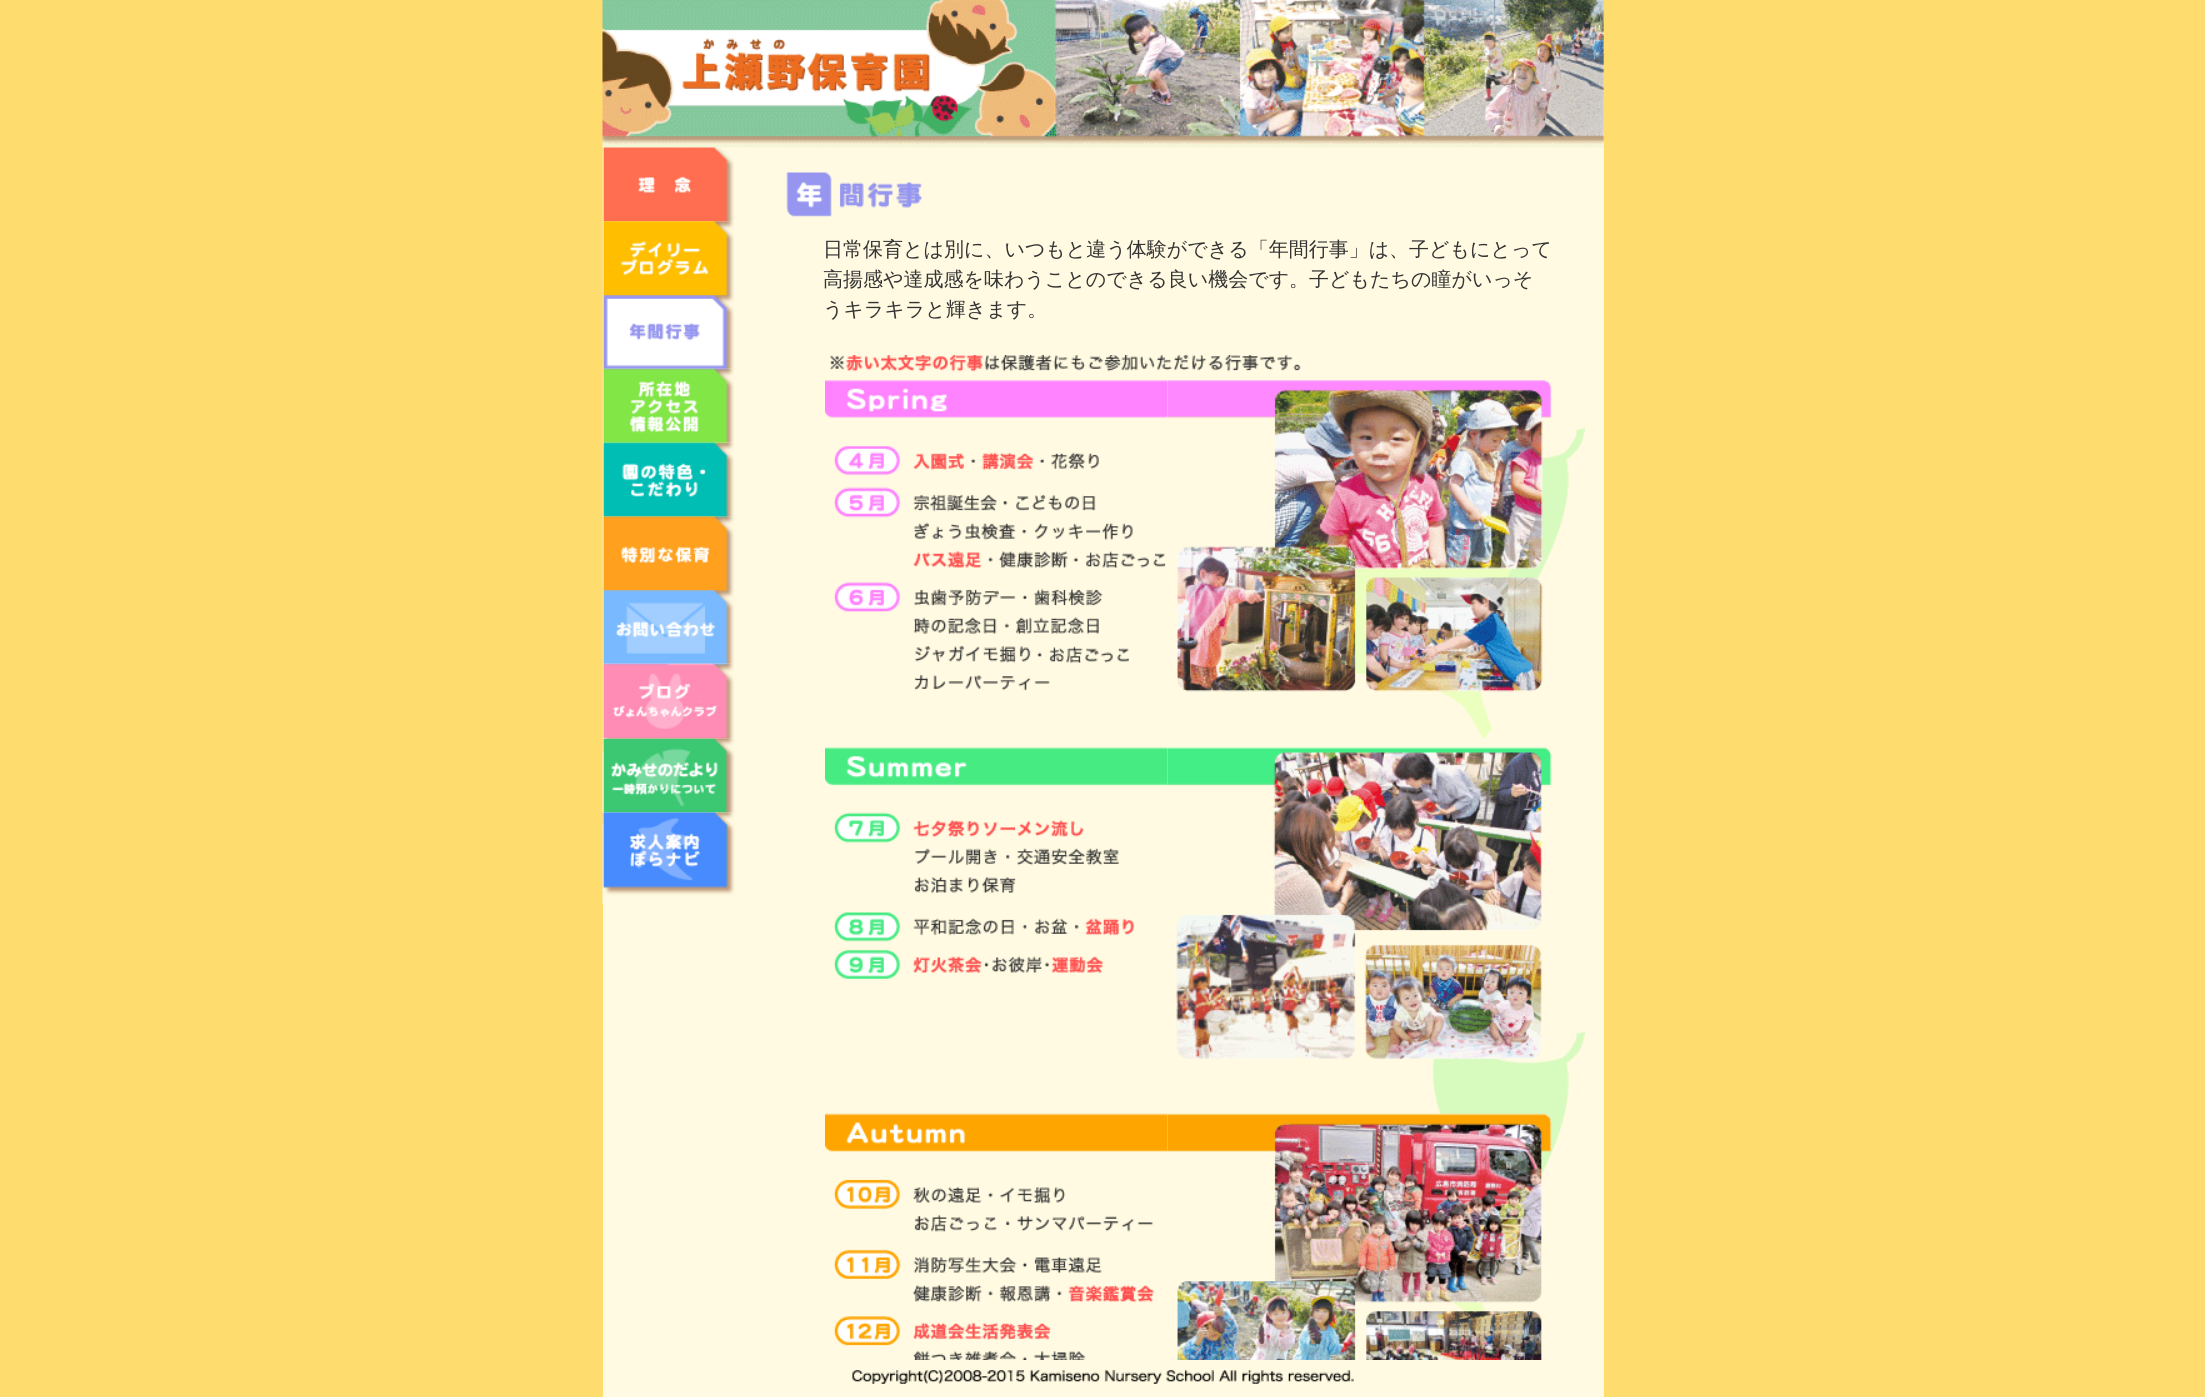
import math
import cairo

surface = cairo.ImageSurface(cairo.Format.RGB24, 2205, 1397)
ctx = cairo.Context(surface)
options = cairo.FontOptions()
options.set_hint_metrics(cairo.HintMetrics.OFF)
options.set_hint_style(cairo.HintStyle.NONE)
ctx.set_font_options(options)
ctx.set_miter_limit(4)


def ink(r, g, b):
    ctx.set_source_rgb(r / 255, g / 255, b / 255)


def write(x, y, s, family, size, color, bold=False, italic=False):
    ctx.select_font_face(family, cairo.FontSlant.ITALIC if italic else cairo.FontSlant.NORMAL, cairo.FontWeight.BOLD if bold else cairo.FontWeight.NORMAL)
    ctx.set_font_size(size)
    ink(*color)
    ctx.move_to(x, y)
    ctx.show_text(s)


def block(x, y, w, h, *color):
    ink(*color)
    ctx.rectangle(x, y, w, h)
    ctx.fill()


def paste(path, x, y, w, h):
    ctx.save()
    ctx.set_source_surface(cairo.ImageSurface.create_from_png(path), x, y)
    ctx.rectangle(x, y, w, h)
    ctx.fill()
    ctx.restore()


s1 = dict(family="WenQuanYi Zen Hei Medium", size=20, color=(51, 51, 51))

ink(255, 220, 110)
ctx.paint()
block(603, 0, 1001, 1397, 255, 250, 225)
paste("pic1.png", 602, 0, 1002, 148)
paste("pic2.png", 602, 147, 132, 75)
paste("pic3.png", 602, 221, 132, 74)
paste("pic4.png", 602, 295, 132, 74)
paste("pic5.png", 602, 368, 132, 75)
paste("pic6.png", 602, 442, 132, 75)
paste("pic7.png", 602, 516, 132, 74)
paste("pic8.png", 602, 590, 132, 74)
paste("pic9.png", 602, 663, 132, 76)
paste("pic10.png", 602, 738, 133, 75)
paste("pic11.png", 602, 812, 133, 92)
paste("pic12.png", 1298, 421, 287, 922)
paste("pic13.png", 786, 172, 137, 45)
write(823, 256, "日常保育とは別に、いつもと違う体験ができる「年間行事」は、子どもにとって", **s1)
write(823, 286, "高揚感や達成感を味わうことのできる良い機会です。子どもたちの瞳がいっそ", **s1)
write(823, 316, "うキラキラと輝きます。", **s1)
paste("pic14.png", 830, 355, 471, 17)
paste("pic15.png", 825, 380, 343, 311)
paste("pic16.png", 1167, 380, 385, 312)
paste("pic17.png", 825, 747, 343, 232)
paste("pic18.png", 1167, 747, 385, 312)
paste("pic19.png", 825, 1113, 343, 247)
paste("pic20.png", 1167, 1113, 385, 247)
paste("pic21.png", 852, 1370, 502, 14)
surface.write_to_png("screenshot.png")
